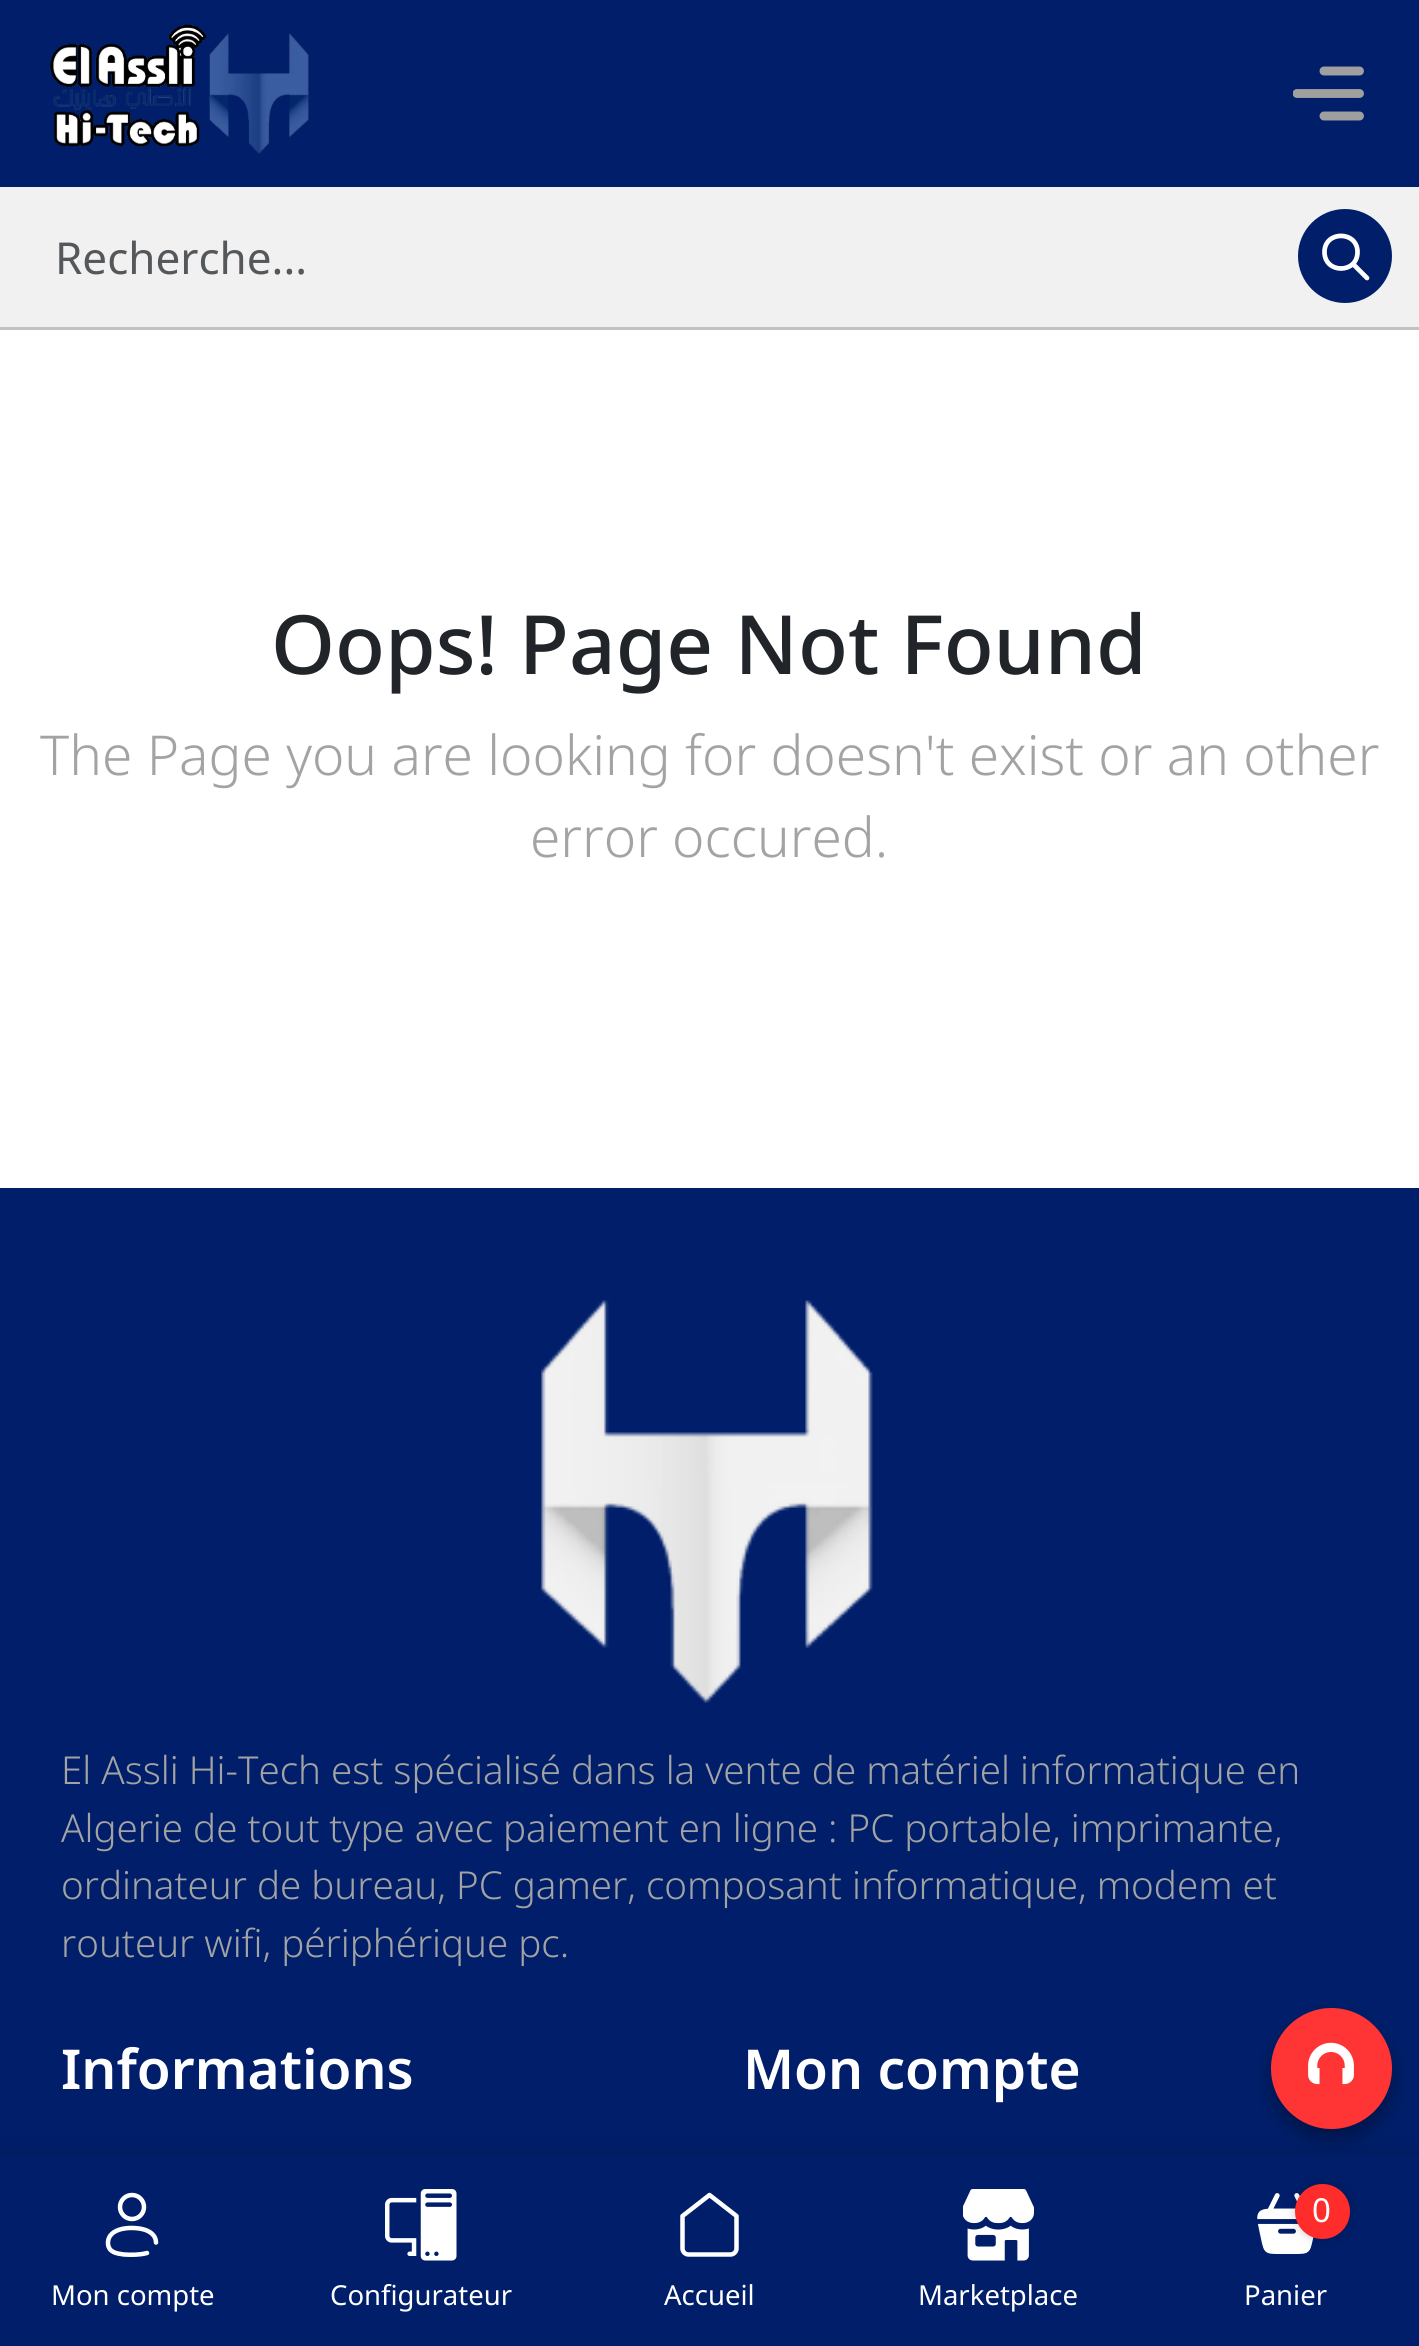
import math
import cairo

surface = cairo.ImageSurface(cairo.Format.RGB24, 1419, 2346)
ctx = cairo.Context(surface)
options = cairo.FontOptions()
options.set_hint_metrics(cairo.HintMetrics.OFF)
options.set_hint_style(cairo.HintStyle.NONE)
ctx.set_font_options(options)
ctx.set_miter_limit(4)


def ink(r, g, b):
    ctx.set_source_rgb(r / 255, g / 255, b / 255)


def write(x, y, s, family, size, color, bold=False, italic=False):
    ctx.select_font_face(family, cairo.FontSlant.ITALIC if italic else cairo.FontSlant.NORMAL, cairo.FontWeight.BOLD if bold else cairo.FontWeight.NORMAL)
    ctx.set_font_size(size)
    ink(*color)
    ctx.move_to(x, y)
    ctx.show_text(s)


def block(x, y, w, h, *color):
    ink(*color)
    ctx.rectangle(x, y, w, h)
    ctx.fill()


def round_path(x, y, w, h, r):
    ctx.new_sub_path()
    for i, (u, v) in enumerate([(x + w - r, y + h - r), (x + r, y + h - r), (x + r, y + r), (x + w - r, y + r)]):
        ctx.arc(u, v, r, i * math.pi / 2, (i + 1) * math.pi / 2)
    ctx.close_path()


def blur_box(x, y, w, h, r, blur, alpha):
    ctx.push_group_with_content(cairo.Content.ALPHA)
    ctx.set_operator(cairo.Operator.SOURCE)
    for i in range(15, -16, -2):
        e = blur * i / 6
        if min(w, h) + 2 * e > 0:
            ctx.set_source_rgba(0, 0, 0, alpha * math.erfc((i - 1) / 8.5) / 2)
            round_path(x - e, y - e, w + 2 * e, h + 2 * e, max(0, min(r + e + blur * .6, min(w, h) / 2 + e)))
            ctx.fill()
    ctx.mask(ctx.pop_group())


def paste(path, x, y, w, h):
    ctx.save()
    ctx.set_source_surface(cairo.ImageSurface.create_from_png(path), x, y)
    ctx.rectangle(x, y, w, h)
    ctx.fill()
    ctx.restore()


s1 = dict(family="Noto Sans", size=44, color=(85, 88, 91))
s2 = dict(family="Noto Sans Medium", size=81.75, color=(33, 37, 41))
s3 = dict(family="Noto Sans Light", size=55, color=(163, 163, 163))
s4 = dict(family="Noto Sans Light", size=38.5, color=(163, 163, 163))
s5 = dict(family="Noto Sans SemiBold", size=55, color=(255, 255, 255))
s6 = dict(family="Noto Sans", size=27.5, color=(255, 255, 255))
s7 = dict(family="Noto Sans", size=33, color=(255, 255, 255))

ink(255, 255, 255)
ctx.paint()
block(0, 0, 1419, 187, 0, 30, 105)
paste("pic1.png", 50, 24, 259, 130)
ctx.save()
ctx.rectangle(1293, 58, 71, 71)
ctx.clip()
ctx.new_path()
ctx.move_to(1324, 116)
ctx.line_to(1359.5, 116)
ctx.move_to(1297, 93.5)
ctx.line_to(1359.5, 93.5)
ctx.move_to(1324, 71)
ctx.line_to(1359.5, 71)
ink(159, 159, 159)
ctx.set_line_width(8.9)
ctx.set_line_cap(cairo.LineCap.ROUND)
ctx.set_line_join(cairo.LineJoin.ROUND)
ctx.stroke()
ctx.restore()
block(0, 187, 1419, 140, 241, 241, 241)
block(0, 327, 1419, 3, 193, 193, 193)
write(55, 274, "Recherche...", **s1)
ink(0, 30, 105)
ctx.new_path()
ctx.arc(1345, 256, 47, 0, 2 * math.pi)
ctx.fill()
ctx.new_path()
ctx.move_to(1324.5, 252)
ctx.curve_to(1324.5, 274, 1357.5, 274, 1357.5, 252)
ctx.curve_to(1357.5, 230.5, 1324.5, 230.5, 1324.5, 252)
ctx.move_to(1367, 278)
ctx.line_to(1353, 264)
ink(255, 255, 255)
ctx.set_line_width(4.7)
ctx.set_line_cap(cairo.LineCap.ROUND)
ctx.set_line_join(cairo.LineJoin.ROUND)
ctx.stroke()
write(271, 674, "Oops! Page Not Found", **s2)
write(40, 775, "The Page you are looking for doesn't exist or an other", **s3)
write(530, 857, "error occured.", **s3)
block(0, 1188, 1419, 968, 0, 30, 105)
paste("pic2.png", 540, 1300, 333, 403)
write(61, 1784, "El Assli Hi-Tech est spécialisé dans la vente de matériel informatique en", **s4)
write(61, 1842, "Algerie de tout type avec paiement en ligne : PC portable, imprimante,", **s4)
write(61, 1899, "ordinateur de bureau, PC gamer, composant informatique, modem et", **s4)
write(61, 1957, "routeur wifi, périphérique pc.", **s4)
write(61, 2089, "Informations", **s5)
write(743, 2089, "Mon compte", **s5)
ink(0, 0, 0)
blur_box(0, 2156, 1419, 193, 0, 12.5, 0.12)
block(0, 2156, 1419, 190, 0, 30, 105)
ink(0, 0, 0)
blur_box(1271, 2019, 121, 121, 60.5, 8, 0.3)
ink(255, 53, 53)
ctx.arc(1331.5, 2068.5, 60.5, 0, 2 * math.pi)
ctx.fill()
paste("pic3.png", 1308, 2042, 46, 43)
ctx.arc(132, 2207, 12, 0, 2 * math.pi)
ink(255, 255, 255)
ctx.set_line_width(4.5)
ctx.set_line_cap(cairo.LineCap.BUTT)
ctx.set_line_join(cairo.LineJoin.MITER)
ctx.stroke()
ctx.new_path()
ctx.move_to(156, 2242.5)
ctx.curve_to(156, 2236, 151, 2232, 145.5, 2230)
ctx.curve_to(134, 2226, 107, 2226.5, 108, 2244)
ctx.curve_to(109, 2252.5, 116.5, 2253.5, 124, 2254.5)
ctx.curve_to(131.5, 2255, 139.5, 2255, 147, 2253)
ctx.set_line_cap(cairo.LineCap.ROUND)
ctx.stroke()
write(51, 2305, "Mon compte", **s6)
paste("pic4.png", 385, 2189, 72, 72)
write(330, 2305, "Configurateur", **s6)
ctx.new_path()
ctx.move_to(682.5, 2216)
ctx.line_to(709.5, 2195)
ctx.line_to(736.5, 2216)
ctx.line_to(736.5, 2248.5)
ctx.curve_to(736.5, 2252, 733.5, 2254.5, 730.5, 2254.5)
ctx.line_to(688.5, 2254.5)
ctx.curve_to(685.5, 2254.5, 682.5, 2252, 682.5, 2248.5)
ctx.close_path()
ctx.set_line_join(cairo.LineJoin.ROUND)
ctx.stroke()
write(664, 2305, "Accueil", **s6)
paste("pic5.png", 963, 2189, 71, 72)
write(918, 2305, "Marketplace", **s6)
paste("pic6.png", 1257, 2193, 57, 61)
ink(0, 0, 0)
blur_box(1295, 2184, 55, 55, 27.5, 5.5, 0.17)
ink(255, 44, 44)
ctx.arc(1322.5, 2211.5, 27.5, 0, 2 * math.pi)
ctx.fill()
write(1312, 2222, "0", **s7)
write(1244, 2305, "Panier", **s6)
surface.write_to_png("screenshot.png")
